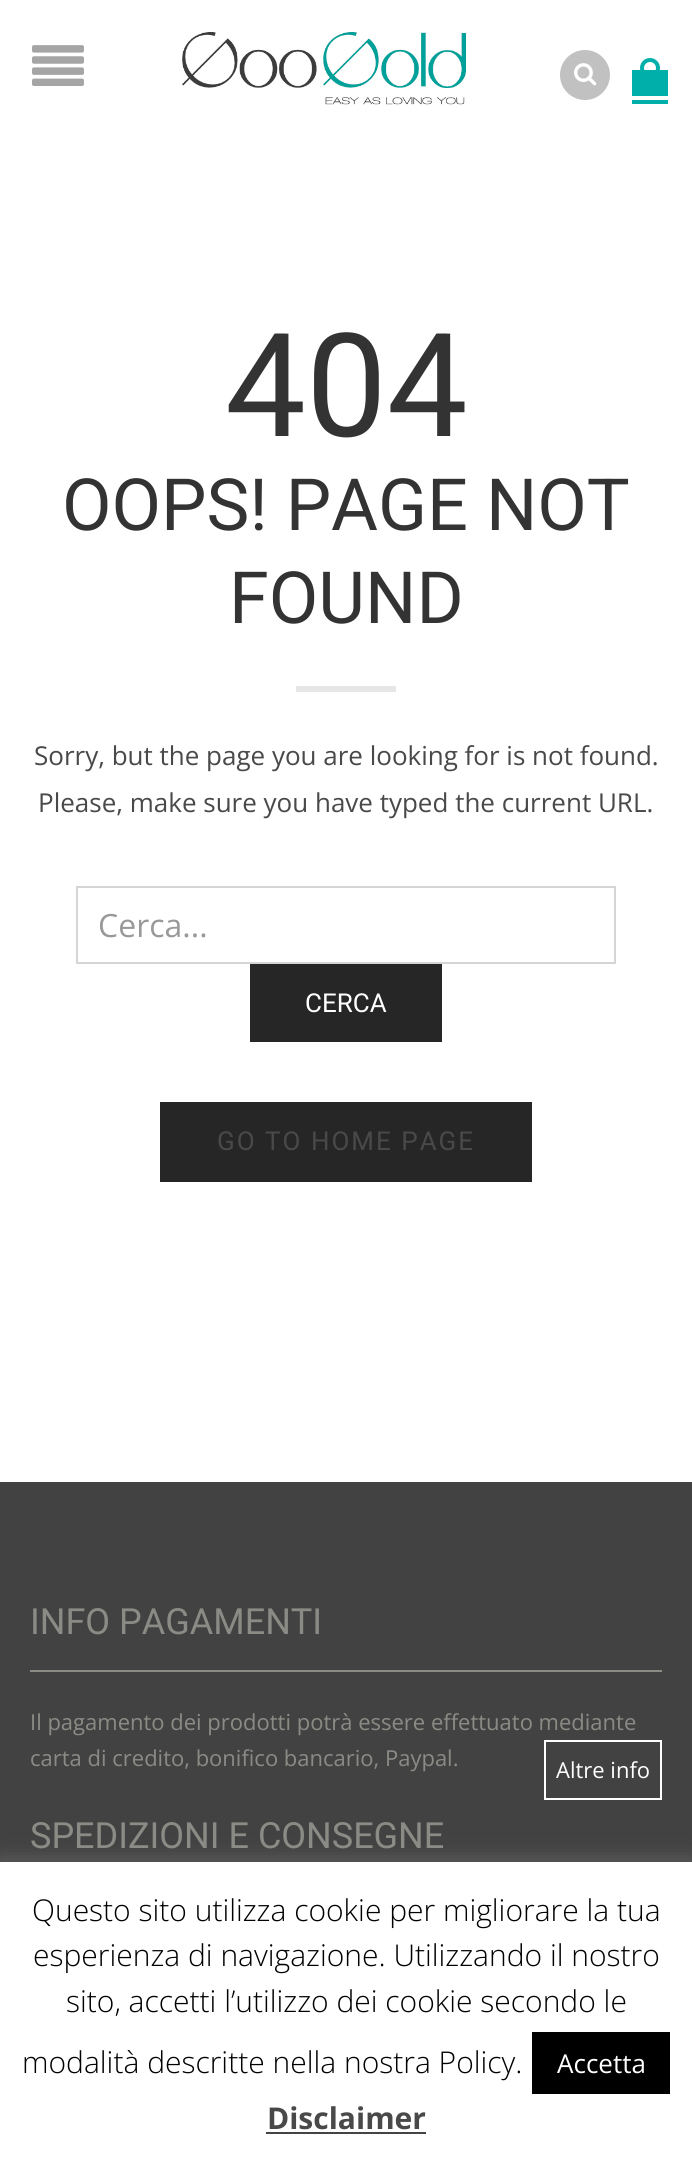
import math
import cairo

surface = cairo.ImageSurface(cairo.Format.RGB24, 692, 2164)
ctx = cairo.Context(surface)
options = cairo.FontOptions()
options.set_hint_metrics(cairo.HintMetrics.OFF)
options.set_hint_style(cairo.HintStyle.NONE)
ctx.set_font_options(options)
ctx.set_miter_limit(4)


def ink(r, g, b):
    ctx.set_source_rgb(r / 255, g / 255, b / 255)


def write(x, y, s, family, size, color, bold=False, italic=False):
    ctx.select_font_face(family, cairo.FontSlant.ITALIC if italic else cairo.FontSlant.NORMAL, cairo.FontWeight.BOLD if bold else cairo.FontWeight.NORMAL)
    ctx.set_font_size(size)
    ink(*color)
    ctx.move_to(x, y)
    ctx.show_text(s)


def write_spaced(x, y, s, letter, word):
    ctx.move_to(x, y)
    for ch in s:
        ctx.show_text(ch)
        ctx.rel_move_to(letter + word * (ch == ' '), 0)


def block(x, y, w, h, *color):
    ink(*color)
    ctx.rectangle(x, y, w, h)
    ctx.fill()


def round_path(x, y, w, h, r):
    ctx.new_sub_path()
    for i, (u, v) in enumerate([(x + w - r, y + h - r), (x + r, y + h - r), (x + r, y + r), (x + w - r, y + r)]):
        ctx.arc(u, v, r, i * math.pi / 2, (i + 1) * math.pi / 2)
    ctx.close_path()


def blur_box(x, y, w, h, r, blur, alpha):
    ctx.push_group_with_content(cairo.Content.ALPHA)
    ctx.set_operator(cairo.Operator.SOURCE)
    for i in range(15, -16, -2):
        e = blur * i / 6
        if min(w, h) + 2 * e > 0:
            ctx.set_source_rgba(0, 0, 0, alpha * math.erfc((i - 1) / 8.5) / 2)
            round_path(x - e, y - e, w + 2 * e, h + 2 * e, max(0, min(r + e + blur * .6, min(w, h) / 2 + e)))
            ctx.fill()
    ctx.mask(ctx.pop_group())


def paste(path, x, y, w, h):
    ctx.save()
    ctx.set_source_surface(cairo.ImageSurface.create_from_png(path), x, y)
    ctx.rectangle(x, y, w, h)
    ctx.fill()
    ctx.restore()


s1 = dict(family="Roboto", size=144, color=(51, 51, 51))
s2 = dict(family="Roboto", size=72, color=(51, 51, 51))
s3 = dict(family="Open Sans", size=26, color=(73, 73, 73))
s4 = dict(family="Open Sans", size=32, color=(153, 153, 153))
s5 = dict(family="Roboto", size=26, color=(255, 255, 255))
s6 = dict(family="Roboto", size=36, color=(139, 139, 134))
s7 = dict(family="Open Sans", size=22, color=(139, 139, 134))
s8 = dict(family="Open Sans", size=22, color=(255, 255, 255))
s9 = dict(family="Open Sans Light", size=30, color=(0, 0, 0))
s10 = dict(family="Open Sans", size=26, color=(255, 255, 255))
s11 = dict(family="Open Sans", size=30, color=(73, 73, 73), bold=True)

ink(255, 255, 255)
ctx.paint()
paste("pic1.png", 32, 45, 52, 41)
paste("pic2.png", 182, 32, 284, 73)
ink(193, 193, 193)
ctx.arc(585, 75, 25, 0, 2 * math.pi)
ctx.fill()
paste("pic3.png", 574, 63, 23, 23)
block(632, 70, 36, 26, 0, 175, 170)
ctx.arc(650, 68, 8, 0, 2 * math.pi)
ctx.set_line_width(4)
ctx.stroke()
block(632, 100, 36, 4, 0, 175, 170)
write(225, 436, "404", **s1)
write(62, 530, "OOPS! PAGE NOT", **s2)
write(229, 623, "FOUND", **s2)
block(296, 686, 100, 6, 230, 230, 230)
write(34, 765, "Sorry, but the page you are looking for is not found.", **s3)
write(38, 812, "Please, make sure you have typed the current URL.", **s3)
ctx.rectangle(77, 887, 538, 76)
ink(213, 213, 213)
ctx.set_line_width(2)
ctx.stroke()
write(98, 937, "Cerca...", **s4)
block(250, 964, 192, 78, 38, 38, 38)
write(305, 1012, "CERCA", **s5)
block(160, 1102, 372, 80, 38, 38, 38)
ink(73, 73, 73)
write_spaced(217, 1150, "GO TO HOME PAGE", 2, 0)
block(0, 1482, 692, 380, 66, 66, 66)
block(30, 1670, 632, 2, 139, 139, 134)
write(30, 1634, "INFO PAGAMENTI", **s6)
write(30, 1730, "Il pagamento dei prodotti potrà essere effettuato mediante", **s7)
write(30, 1766, "carta di credito, bonifico bancario, Paypal.", **s7)
ctx.rectangle(545, 1741, 116, 58)
ink(255, 255, 255)
ctx.stroke()
write(556, 1778, "Altre info", **s8)
write(30, 1848, "SPEDIZIONI E CONSEGNE", **s6)
ink(172, 171, 171)
blur_box(0, 1860, 692, 302, 0, 10, 0.3)
block(0, 1862, 692, 302, 255, 255, 255)
write(32, 1921, "Questo sito utilizza cookie per migliorare la tua", **s9)
write(33, 1966, "esperienza di navigazione. Utilizzando il nostro", **s9)
write(66, 2012, "sito, accetti l’utilizzo dei cookie secondo le", **s9)
write(22, 2073, "modalità descritte nella nostra Policy.", **s9)
block(532, 2032, 138, 62, 0, 0, 0)
write(557, 2073, "Accetta", **s10)
write(267, 2129, "Disclaimer", **s11)
block(266, 2132, 160, 2, 68, 68, 68)
surface.write_to_png("screenshot.png")
